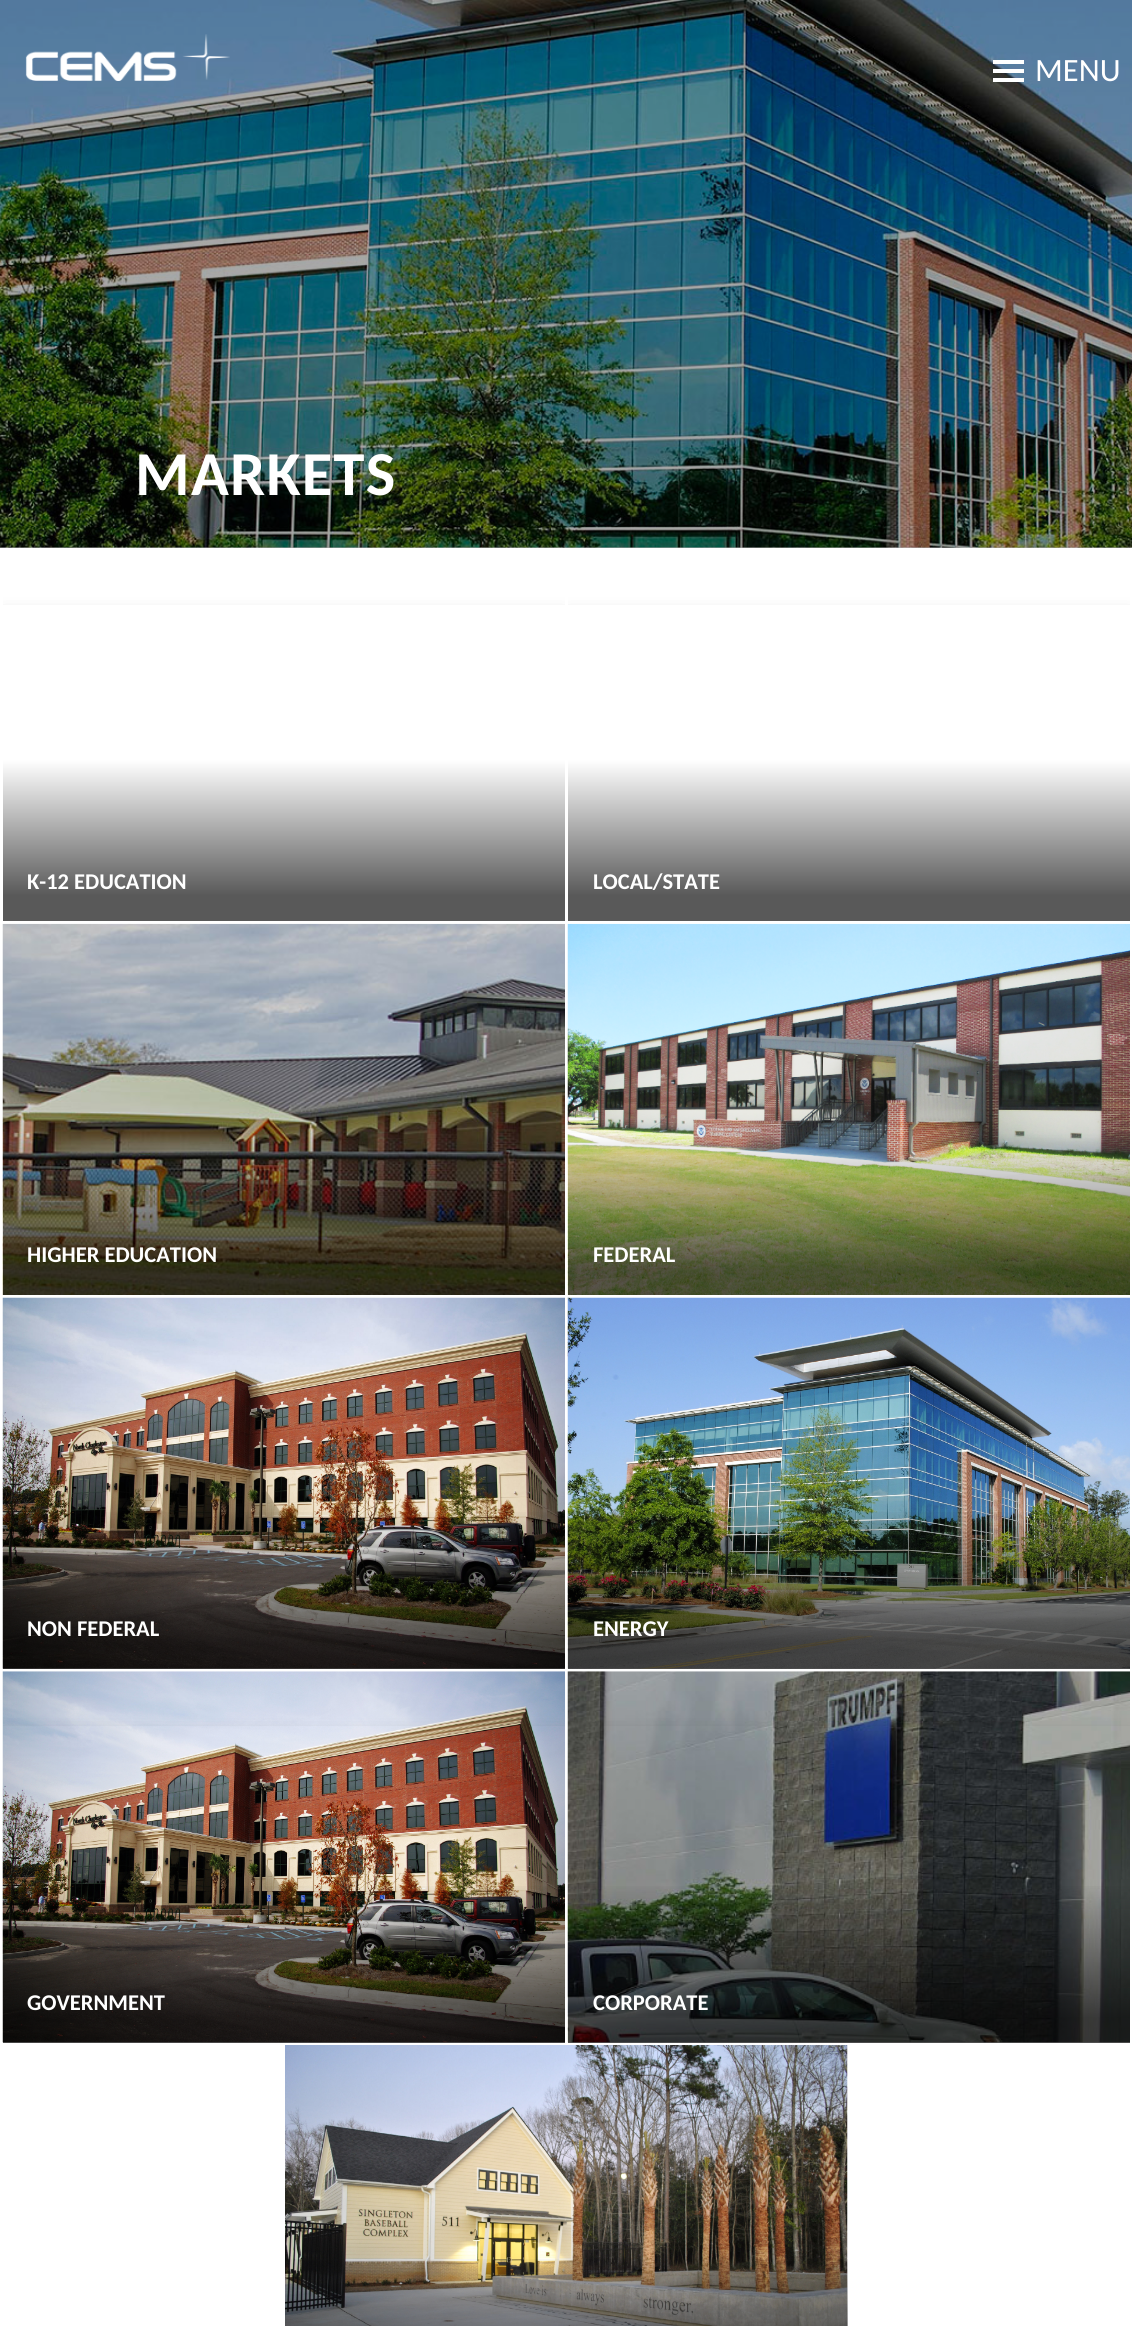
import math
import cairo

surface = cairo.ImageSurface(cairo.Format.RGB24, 1132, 2326)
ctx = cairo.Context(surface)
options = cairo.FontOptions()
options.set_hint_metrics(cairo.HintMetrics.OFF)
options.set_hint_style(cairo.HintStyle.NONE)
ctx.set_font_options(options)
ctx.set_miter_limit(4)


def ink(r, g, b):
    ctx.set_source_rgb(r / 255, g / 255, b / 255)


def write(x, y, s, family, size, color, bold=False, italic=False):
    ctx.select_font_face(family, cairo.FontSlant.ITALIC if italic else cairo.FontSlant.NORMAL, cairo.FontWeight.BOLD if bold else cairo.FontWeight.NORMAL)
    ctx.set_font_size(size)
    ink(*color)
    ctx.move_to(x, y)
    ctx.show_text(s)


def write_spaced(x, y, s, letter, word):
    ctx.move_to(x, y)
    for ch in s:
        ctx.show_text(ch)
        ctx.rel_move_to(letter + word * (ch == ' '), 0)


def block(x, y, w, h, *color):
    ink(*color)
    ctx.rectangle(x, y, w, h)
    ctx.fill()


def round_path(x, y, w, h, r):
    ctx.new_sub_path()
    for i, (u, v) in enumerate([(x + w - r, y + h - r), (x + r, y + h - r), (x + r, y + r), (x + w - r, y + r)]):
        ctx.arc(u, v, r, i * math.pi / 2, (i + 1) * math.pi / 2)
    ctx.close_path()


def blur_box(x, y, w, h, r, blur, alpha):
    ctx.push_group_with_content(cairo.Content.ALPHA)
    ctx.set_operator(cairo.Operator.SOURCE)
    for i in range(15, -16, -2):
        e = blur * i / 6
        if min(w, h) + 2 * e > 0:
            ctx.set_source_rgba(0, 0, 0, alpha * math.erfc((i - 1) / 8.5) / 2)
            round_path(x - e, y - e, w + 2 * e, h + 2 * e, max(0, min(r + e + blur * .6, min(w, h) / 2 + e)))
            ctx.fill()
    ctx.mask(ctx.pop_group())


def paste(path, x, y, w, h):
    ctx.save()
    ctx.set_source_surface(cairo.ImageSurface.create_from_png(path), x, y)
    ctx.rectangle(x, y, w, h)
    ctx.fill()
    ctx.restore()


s1 = dict(family="Carlito", size=32.5, color=(255, 255, 255))
s2 = dict(family="Carlito", size=22.5, color=(255, 255, 255), bold=True)

ink(255, 255, 255)
ctx.paint()
block(0, 547, 1132, 1, 168, 168, 168)
paste("pic2.png", 0, 0, 1132, 548)
paste("pic1.png", 25, 34, 205, 47)
block(993, 60, 31, 4, 255, 255, 255)
write(1035, 81, "MENU", **s1)
block(993, 69, 31, 4, 255, 255, 255)
block(993, 78, 31, 4, 255, 255, 255)
ctx.select_font_face("Carlito", cairo.FontSlant.NORMAL, cairo.FontWeight.BOLD)
ctx.set_font_size(62.5)
write_spaced(135, 495, "MARKETS", 1.25, 0)
paste("pic3.png", 2, 923, 563, 372)
paste("pic4.png", 567, 923, 563, 372)
ctx.save()
ctx.rectangle(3, 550, 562, 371)
ctx.clip()
ink(0, 0, 0)
blur_box(3, 615, 562, 316, 0, 10, 0.15)
ctx.restore()
gradient = cairo.LinearGradient(284, 605, 284, 921)
gradient.add_color_stop_rgba(0, 1, 1, 1, 1)
gradient.add_color_stop_rgba(0.49, 1, 1, 1, 1)
gradient.add_color_stop_rgba(0.92, 0.349, 0.349, 0.349, 1)
gradient.add_color_stop_rgba(1, 0.349, 0.349, 0.349, 1)
ctx.set_source(gradient)
ctx.rectangle(3, 605, 562, 316)
ctx.fill()
write(27, 889, "K-12 EDUCATION", **s2)
ctx.save()
ctx.rectangle(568, 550, 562, 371)
ctx.clip()
ink(0, 0, 0)
blur_box(568, 615, 562, 316, 0, 10, 0.15)
ctx.restore()
gradient = cairo.LinearGradient(849, 605, 849, 921)
gradient.add_color_stop_rgba(0, 1, 1, 1, 1)
gradient.add_color_stop_rgba(0.49, 1, 1, 1, 1)
gradient.add_color_stop_rgba(0.92, 0.349, 0.349, 0.349, 1)
gradient.add_color_stop_rgba(1, 0.349, 0.349, 0.349, 1)
ctx.set_source(gradient)
ctx.rectangle(568, 605, 562, 316)
ctx.fill()
write(593, 889, "LOCAL/STATE", **s2)
write(27, 1262, "HIGHER EDUCATION", **s2)
write(593, 1262, "FEDERAL", **s2)
paste("pic5.png", 2, 1297, 563, 372)
gradient = cairo.LinearGradient(284, 1353, 284, 1669)
gradient.add_color_stop_rgba(0, 0, 0, 0, 0)
gradient.add_color_stop_rgba(0.49, 0, 0, 0, 0)
gradient.add_color_stop_rgba(0.92, 0, 0, 0, 0.65)
gradient.add_color_stop_rgba(1, 0, 0, 0, 0.65)
ctx.set_source(gradient)
ctx.rectangle(3, 1512, 562, 157)
ctx.fill()
write(27, 1636, "NON FEDERAL", **s2)
paste("pic6.png", 567, 1297, 563, 372)
gradient = cairo.LinearGradient(849, 1353, 849, 1669)
gradient.add_color_stop_rgba(0, 0, 0, 0, 0)
gradient.add_color_stop_rgba(0.49, 0, 0, 0, 0)
gradient.add_color_stop_rgba(0.92, 0, 0, 0, 0.65)
gradient.add_color_stop_rgba(1, 0, 0, 0, 0.65)
ctx.set_source(gradient)
ctx.rectangle(568, 1512, 562, 157)
ctx.fill()
write(593, 1636, "ENERGY", **s2)
paste("pic7.png", 2, 1671, 563, 372)
paste("pic8.png", 567, 1671, 563, 372)
paste("pic9.png", 285, 2045, 563, 281)
ctx.save()
ctx.rectangle(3, 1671, 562, 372)
ctx.clip()
ctx.set_fill_rule(cairo.FillRule.EVEN_ODD)
ctx.new_path()
ctx.move_to(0, 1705)
ctx.line_to(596, 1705)
ctx.line_to(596, 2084)
ctx.line_to(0, 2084)
ctx.close_path()
ctx.move_to(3, 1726)
ctx.line_to(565, 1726)
ctx.line_to(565, 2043)
ctx.line_to(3, 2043)
ctx.close_path()
ctx.clip()
ink(0, 0, 0)
blur_box(3, 1736, 562, 317, 0, 10, 0.15)
ctx.restore()
gradient = cairo.LinearGradient(284, 1726, 284, 2043)
gradient.add_color_stop_rgba(0, 0, 0, 0, 0)
gradient.add_color_stop_rgba(0.49, 0, 0, 0, 0)
gradient.add_color_stop_rgba(0.92, 0, 0, 0, 0.65)
gradient.add_color_stop_rgba(1, 0, 0, 0, 0.65)
ctx.set_source(gradient)
ctx.rectangle(3, 1886, 562, 157)
ctx.fill()
write(27, 2010, "GOVERNMENT", **s2)
ctx.save()
ctx.rectangle(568, 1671, 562, 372)
ctx.clip()
ctx.set_fill_rule(cairo.FillRule.EVEN_ODD)
ctx.new_path()
ctx.move_to(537, 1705)
ctx.line_to(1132, 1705)
ctx.line_to(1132, 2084)
ctx.line_to(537, 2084)
ctx.close_path()
ctx.move_to(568, 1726)
ctx.line_to(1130, 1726)
ctx.line_to(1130, 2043)
ctx.line_to(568, 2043)
ctx.close_path()
ctx.clip()
ink(0, 0, 0)
blur_box(568, 1736, 562, 317, 0, 10, 0.15)
ctx.restore()
gradient = cairo.LinearGradient(849, 1726, 849, 2043)
gradient.add_color_stop_rgba(0, 0, 0, 0, 0)
gradient.add_color_stop_rgba(0.49, 0, 0, 0, 0)
gradient.add_color_stop_rgba(0.92, 0, 0, 0, 0.65)
gradient.add_color_stop_rgba(1, 0, 0, 0, 0.65)
ctx.set_source(gradient)
ctx.rectangle(568, 1886, 562, 157)
ctx.fill()
write(593, 2010, "CORPORATE", **s2)
gradient = cairo.LinearGradient(566, 2100, 566, 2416)
gradient.add_color_stop_rgba(0, 0, 0, 0, 0)
gradient.add_color_stop_rgba(0.49, 0, 0, 0, 0)
gradient.add_color_stop_rgba(0.92, 0, 0, 0, 0.65)
gradient.add_color_stop_rgba(1, 0, 0, 0, 0.65)
ctx.set_source(gradient)
ctx.rectangle(285, 2259, 563, 67)
ctx.fill()
surface.write_to_png("screenshot.png")
